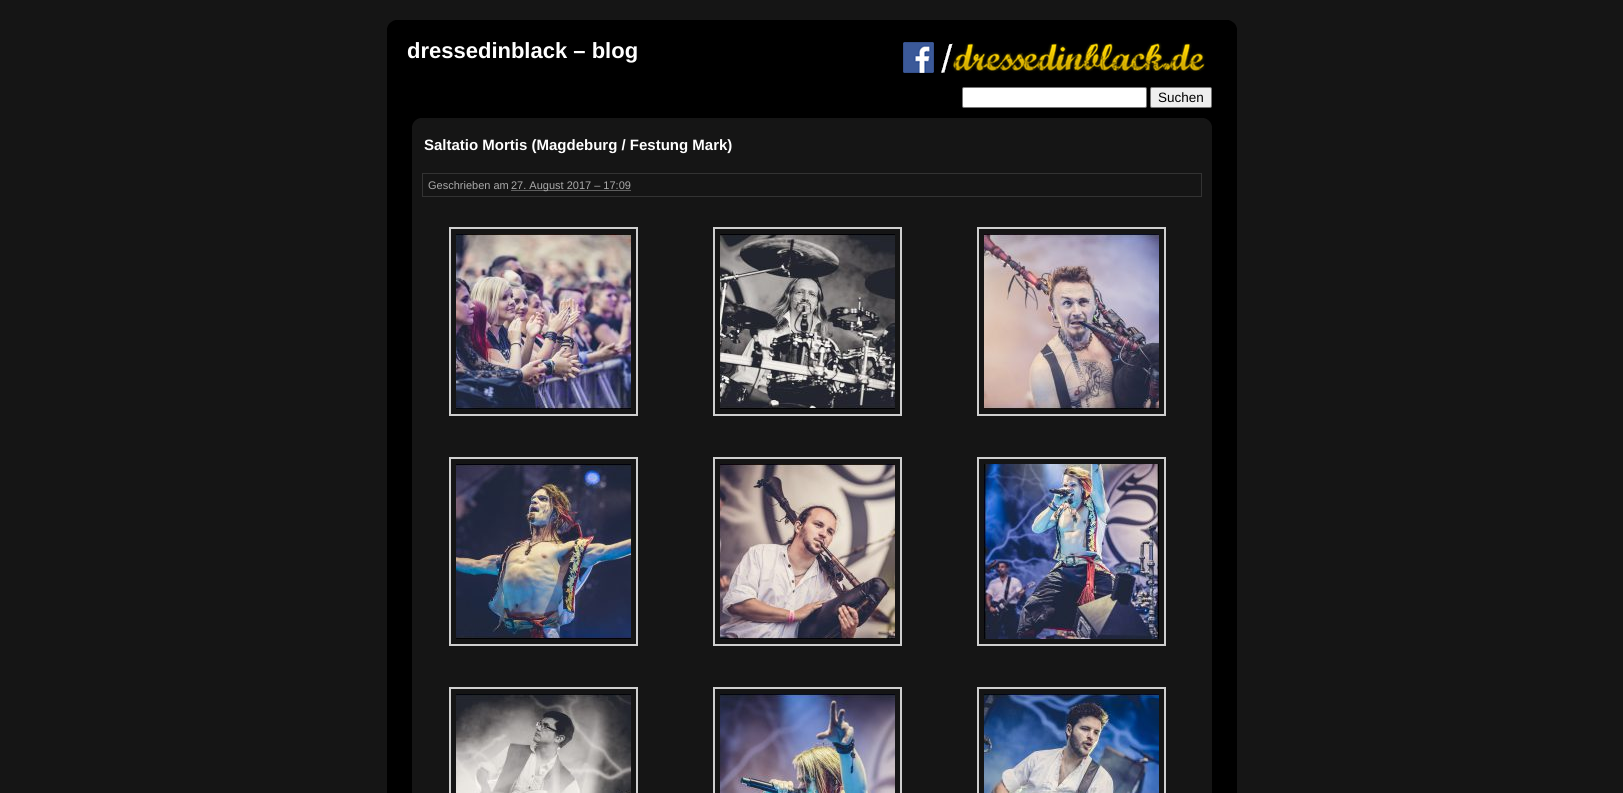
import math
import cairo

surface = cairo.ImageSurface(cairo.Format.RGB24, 1623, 793)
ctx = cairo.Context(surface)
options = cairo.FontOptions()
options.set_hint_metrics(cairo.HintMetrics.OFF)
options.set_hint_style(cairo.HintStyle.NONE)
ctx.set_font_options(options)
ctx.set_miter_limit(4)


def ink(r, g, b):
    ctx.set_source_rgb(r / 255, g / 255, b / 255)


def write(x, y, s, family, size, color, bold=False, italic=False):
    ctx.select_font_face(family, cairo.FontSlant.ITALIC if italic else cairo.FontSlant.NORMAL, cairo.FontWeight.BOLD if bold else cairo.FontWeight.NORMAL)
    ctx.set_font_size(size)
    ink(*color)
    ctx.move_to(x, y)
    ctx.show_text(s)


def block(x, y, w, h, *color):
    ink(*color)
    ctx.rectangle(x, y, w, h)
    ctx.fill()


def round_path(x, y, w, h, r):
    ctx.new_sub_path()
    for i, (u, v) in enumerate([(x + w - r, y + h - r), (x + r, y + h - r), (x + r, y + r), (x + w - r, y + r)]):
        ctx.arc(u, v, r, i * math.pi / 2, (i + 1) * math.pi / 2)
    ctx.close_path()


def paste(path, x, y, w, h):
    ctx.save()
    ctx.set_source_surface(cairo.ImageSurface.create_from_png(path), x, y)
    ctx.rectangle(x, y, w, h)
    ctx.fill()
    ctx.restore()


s1 = dict(family="Liberation Sans", size=22, color=(255, 255, 255), bold=True)
s2 = dict(family="Liberation Sans", size=13.5, color=(0, 0, 0))
s3 = dict(family="Liberation Sans", size=15, color=(255, 255, 255), bold=True)
s4 = dict(family="Liberation Sans", size=11, color=(170, 170, 170))

ink(21, 21, 21)
ctx.paint()
block(387, 20, 850, 773, 0, 0, 0)
paste("pic1.png", 1229, 20, 8, 8)
paste("pic2.png", 387, 20, 8, 8)
write(407, 58, "dressedinblack – blog", **s1)
paste("pic3.png", 903, 42, 302, 31)
round_path(962.5, 87.5, 184, 20, 1.5)
ctx.fill_preserve()
ink(118, 118, 118)
ctx.set_line_width(1)
ctx.stroke()
ink(239, 239, 239)
round_path(1150.5, 87.5, 61, 20, 1.5)
ctx.fill_preserve()
ink(118, 118, 118)
ctx.stroke()
write(1158, 102, "Suchen", **s2)
block(412, 118, 800, 675, 21, 21, 21)
paste("pic4.png", 1204, 118, 8, 8)
paste("pic5.png", 412, 118, 8, 8)
write(424, 150, "Saltatio Mortis (Magdeburg / Festung Mark)", **s3)
ctx.rectangle(422.5, 173.5, 779, 23)
ink(51, 51, 51)
ctx.stroke()
write(428, 189, "Geschrieben am", **s4)
ctx.new_path()
ctx.move_to(511.5, 190.5)
ctx.line_to(631, 190.5)
ctx.set_dash([1, 1])
ctx.stroke()
write(511, 189, "27. August 2017 – 17:09", **s4)
ctx.rectangle(450, 228, 187, 187)
ink(207, 207, 207)
ctx.set_line_width(2)
ctx.set_dash([])
ctx.stroke()
paste("pic6.png", 456, 234, 175, 175)
ctx.rectangle(714, 228, 187, 187)
ctx.stroke()
paste("pic7.png", 720, 234, 175, 175)
ctx.rectangle(978, 228, 187, 187)
ctx.stroke()
paste("pic8.png", 984, 234, 175, 175)
ctx.rectangle(450, 458, 187, 187)
ctx.stroke()
paste("pic9.png", 456, 464, 175, 175)
ctx.rectangle(714, 458, 187, 187)
ctx.stroke()
paste("pic10.png", 720, 464, 175, 175)
ctx.rectangle(978, 458, 187, 187)
ctx.stroke()
paste("pic11.png", 984, 464, 175, 175)
ctx.rectangle(450, 688, 187, 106)
ctx.stroke()
paste("pic12.png", 456, 694, 175, 99)
ctx.rectangle(714, 688, 187, 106)
ctx.stroke()
paste("pic13.png", 720, 694, 175, 99)
ctx.rectangle(978, 688, 187, 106)
ctx.stroke()
paste("pic14.png", 984, 694, 175, 99)
surface.write_to_png("screenshot.png")
